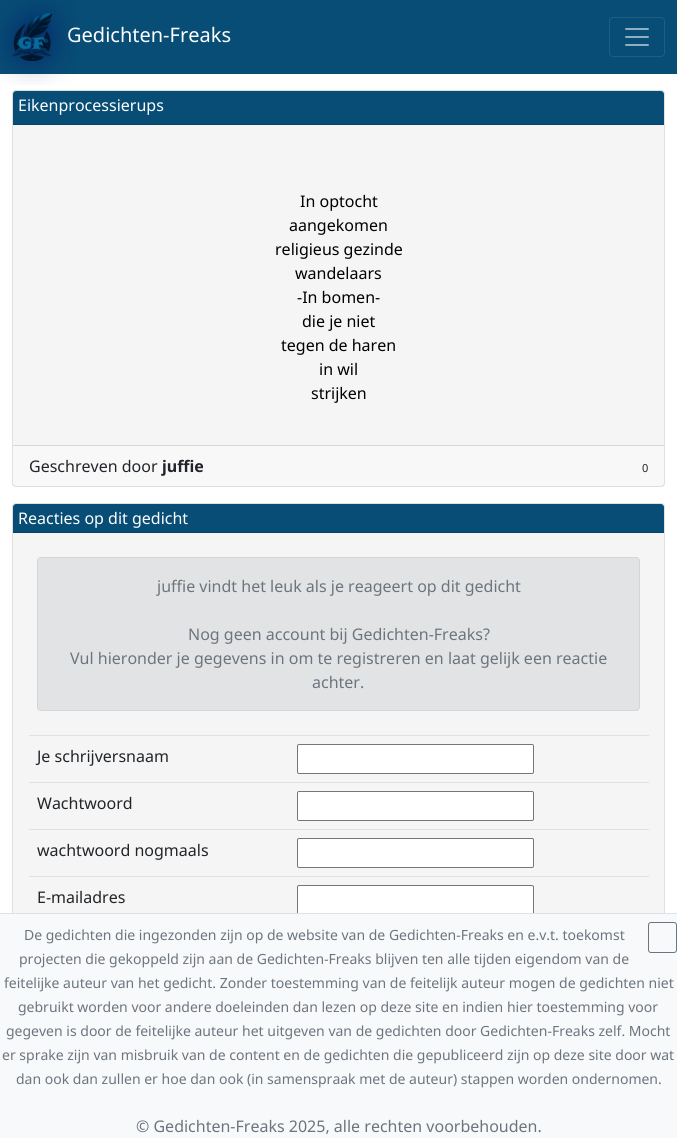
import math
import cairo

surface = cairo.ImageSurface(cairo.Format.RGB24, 677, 1138)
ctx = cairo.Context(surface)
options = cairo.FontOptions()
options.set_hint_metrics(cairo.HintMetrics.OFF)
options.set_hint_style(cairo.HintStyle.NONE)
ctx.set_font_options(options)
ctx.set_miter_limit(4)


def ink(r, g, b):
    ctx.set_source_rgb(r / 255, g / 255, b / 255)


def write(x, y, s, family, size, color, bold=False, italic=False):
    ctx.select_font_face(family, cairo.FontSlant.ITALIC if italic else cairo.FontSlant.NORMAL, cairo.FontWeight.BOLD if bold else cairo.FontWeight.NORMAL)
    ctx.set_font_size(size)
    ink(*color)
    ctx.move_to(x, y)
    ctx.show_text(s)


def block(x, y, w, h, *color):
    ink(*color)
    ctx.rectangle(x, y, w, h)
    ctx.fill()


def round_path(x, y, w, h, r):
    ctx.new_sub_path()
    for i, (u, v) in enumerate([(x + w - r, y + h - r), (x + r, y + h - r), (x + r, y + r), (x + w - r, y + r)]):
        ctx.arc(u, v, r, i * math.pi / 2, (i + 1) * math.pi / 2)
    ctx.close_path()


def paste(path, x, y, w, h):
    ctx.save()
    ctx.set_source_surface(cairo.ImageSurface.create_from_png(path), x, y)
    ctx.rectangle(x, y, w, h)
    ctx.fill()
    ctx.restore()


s1 = dict(family="Noto Sans", size=20, color=(255, 255, 255))
s2 = dict(family="Noto Sans", size=16, color=(255, 255, 255))
s3 = dict(family="Noto Sans", size=16, color=(0, 0, 0))
s4 = dict(family="Noto Sans", size=16, color=(33, 37, 41))
s5 = dict(family="Noto Sans", size=16, color=(33, 37, 41), bold=True)
s6 = dict(family="Noto Sans", size=11, color=(33, 37, 41))
s7 = dict(family="Noto Sans", size=16, color=(108, 117, 125))
s8 = dict(family="Noto Sans", size=14, color=(108, 117, 125))

ink(255, 255, 255)
ctx.paint()
block(0, 0, 677, 74, 7, 77, 117)
write(67, 42, "Gedichten-Freaks", **s1)
paste("pic1.png", 0, 0, 76, 85)
round_path(609.5, 17.5, 55, 39, 3.5)
ink(32, 95, 131)
ctx.set_line_width(1)
ctx.stroke()
paste("pic2.png", 625, 28, 24, 18)
round_path(12.5, 90.5, 652, 396, 3.5)
ink(223, 223, 223)
ctx.stroke()
ink(7, 77, 117)
ctx.new_path()
ctx.move_to(16, 91)
ctx.line_to(661, 91)
ctx.curve_to(662.5, 91, 664, 92.5, 664, 94)
ctx.line_to(664, 125)
ctx.line_to(13, 125)
ctx.line_to(13, 94)
ctx.curve_to(13, 92.5, 14.5, 91, 16, 91)
ctx.close_path()
ctx.fill()
block(13, 124, 651, 1, 6, 67, 102)
write(18, 111, "Eikenprocessierups", **s2)
block(13, 125, 651, 320, 245, 245, 245)
write(300, 207, "In optocht", **s3)
write(289, 231, "aangekomen", **s3)
write(275, 255, "religieus gezinde", **s3)
write(295, 279, "wandelaars", **s3)
write(297, 303, "-In bomen-", **s3)
write(302, 327, "die je niet", **s3)
write(281, 351, "tegen de haren", **s3)
write(319, 375, "in wil", **s3)
write(311, 399, "strijken", **s3)
ctx.set_source_rgba(0, 0, 0, 0.03)
ctx.rectangle(13, 446, 651, 40)
ctx.fill()
block(13, 445, 651, 1, 216, 216, 216)
write(29, 472, "Geschreven door", **s4)
write(162, 472, "juffie", **s5)
write(642, 472, "0", **s6)
round_path(12.5, 503.5, 652, 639, 3.5)
ink(223, 223, 223)
ctx.stroke()
ink(7, 77, 117)
ctx.new_path()
ctx.move_to(16, 504)
ctx.line_to(661, 504)
ctx.curve_to(662.5, 504, 664, 505.5, 664, 507)
ctx.line_to(664, 533)
ctx.line_to(13, 533)
ctx.line_to(13, 507)
ctx.curve_to(13, 505.5, 14.5, 504, 16, 504)
ctx.close_path()
ctx.fill()
block(13, 532, 651, 1, 6, 67, 102)
write(18, 524, "Reacties op dit gedicht", **s2)
block(13, 533, 651, 380, 245, 245, 245)
block(29, 735, 620, 1, 222, 226, 230)
ink(226, 227, 229)
round_path(37.5, 557.5, 602, 153, 3.5)
ctx.fill_preserve()
ink(211, 214, 216)
ctx.stroke()
write(157, 592, "juffie vindt het leuk als je reageert op dit gedicht", **s7)
write(188, 640, "Nog geen account bij Gedichten-Freaks?", **s7)
write(70, 664, "Vul hieronder je gegevens in om te registreren en laat gelijk een reactie", **s7)
write(312, 688, "achter.", **s7)
block(29, 782, 620, 1, 222, 226, 230)
ink(255, 255, 255)
round_path(297.5, 744.5, 236, 29, 1.5)
ctx.fill_preserve()
ink(118, 118, 118)
ctx.stroke()
write(37, 762, "Je schrijversnaam", **s4)
block(29, 829, 620, 1, 222, 226, 230)
ink(255, 255, 255)
round_path(297.5, 791.5, 236, 29, 1.5)
ctx.fill_preserve()
ink(118, 118, 118)
ctx.stroke()
write(37, 809, "Wachtwoord", **s4)
block(29, 876, 620, 1, 222, 226, 230)
ink(255, 255, 255)
round_path(297.5, 838.5, 236, 29, 1.5)
ctx.fill_preserve()
ink(118, 118, 118)
ctx.stroke()
write(37, 856, "wachtwoord nogmaals", **s4)
write(37, 903, "E-mailadres", **s4)
ink(255, 255, 255)
round_path(297.5, 885.5, 236, 29, 1.5)
ctx.fill_preserve()
ink(118, 118, 118)
ctx.stroke()
block(0, 914, 677, 224, 248, 249, 250)
block(0, 913, 677, 1, 222, 226, 230)
write(24, 940, "De gedichten die ingezonden zijn op de website van de Gedichten-Freaks en e.v.t. toekomst", **s8)
round_path(648.5, 922.5, 28, 30, 2.5)
ctx.stroke()
write(19, 964, "projecten die gekoppeld zijn aan de Gedichten-Freaks blijven ten alle tijden eigendom van de", **s8)
write(4, 988, "feitelijke auteur van het gedicht. Zonder toestemming van de feitelijk auteur mogen de gedichten niet", **s8)
write(18, 1012, "gebruikt worden voor andere doeleinden dan lezen op deze site en indien hier toestemming voor", **s8)
write(6, 1036, "gegeven is door de feitelijke auteur het uitgeven van de gedichten door Gedichten-Freaks zelf. Mocht", **s8)
write(2, 1060, "er sprake zijn van misbruik van de content en de gedichten die gepubliceerd zijn op deze site door wat", **s8)
write(16, 1084, "dan ook dan zullen er hoe dan ook (in samenspraak met de auteur) stappen worden ondernomen.", **s8)
write(136, 1132, "© Gedichten-Freaks 2025, alle rechten voorbehouden.", **s7)
surface.write_to_png("screenshot.png")
